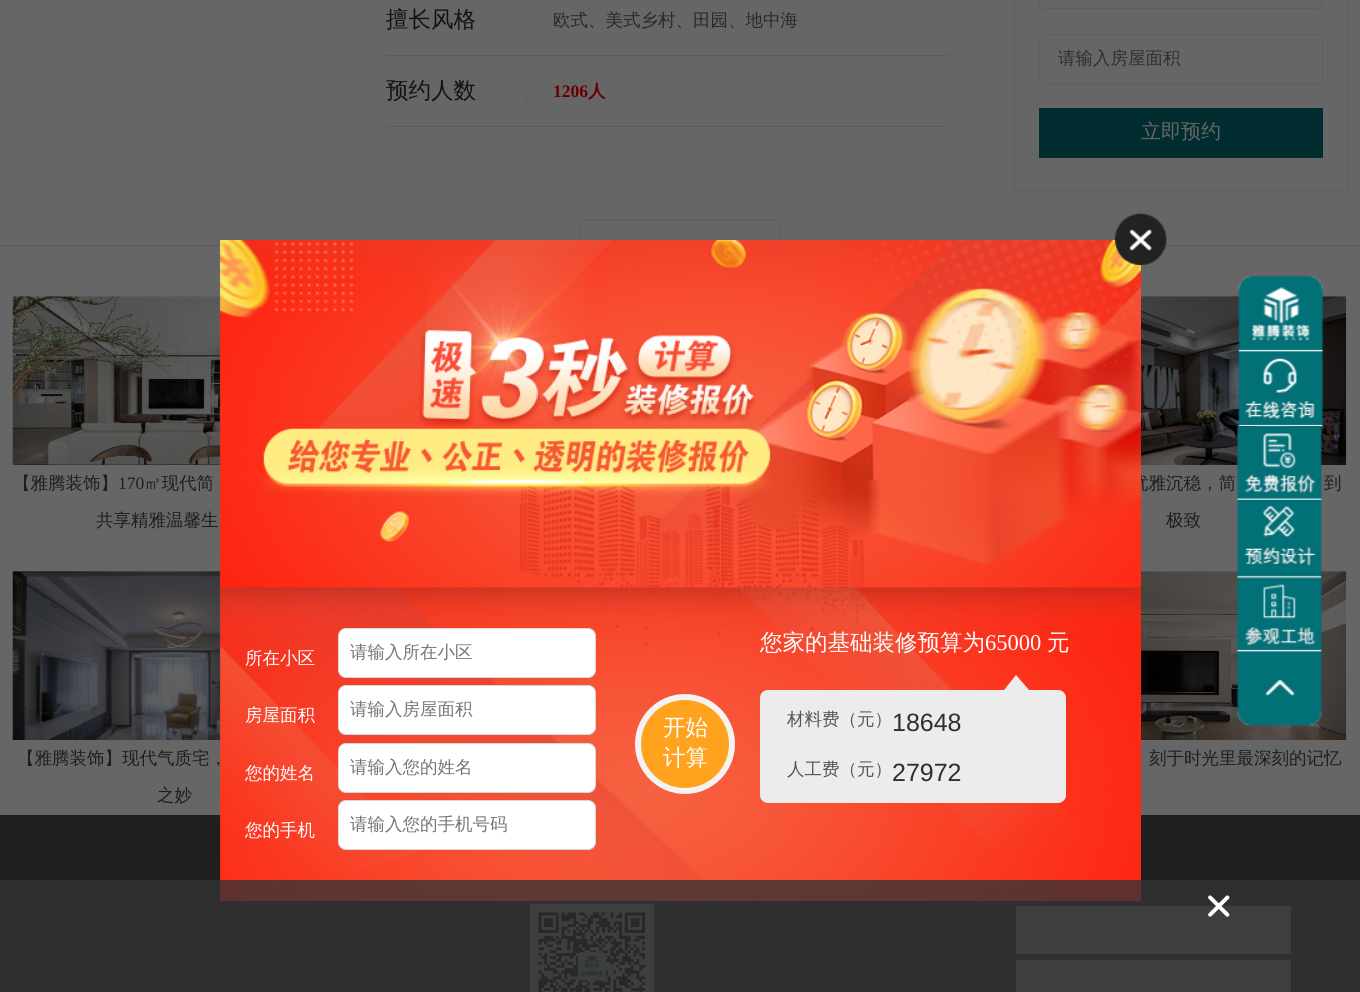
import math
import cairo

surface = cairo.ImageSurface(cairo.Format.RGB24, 1360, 992)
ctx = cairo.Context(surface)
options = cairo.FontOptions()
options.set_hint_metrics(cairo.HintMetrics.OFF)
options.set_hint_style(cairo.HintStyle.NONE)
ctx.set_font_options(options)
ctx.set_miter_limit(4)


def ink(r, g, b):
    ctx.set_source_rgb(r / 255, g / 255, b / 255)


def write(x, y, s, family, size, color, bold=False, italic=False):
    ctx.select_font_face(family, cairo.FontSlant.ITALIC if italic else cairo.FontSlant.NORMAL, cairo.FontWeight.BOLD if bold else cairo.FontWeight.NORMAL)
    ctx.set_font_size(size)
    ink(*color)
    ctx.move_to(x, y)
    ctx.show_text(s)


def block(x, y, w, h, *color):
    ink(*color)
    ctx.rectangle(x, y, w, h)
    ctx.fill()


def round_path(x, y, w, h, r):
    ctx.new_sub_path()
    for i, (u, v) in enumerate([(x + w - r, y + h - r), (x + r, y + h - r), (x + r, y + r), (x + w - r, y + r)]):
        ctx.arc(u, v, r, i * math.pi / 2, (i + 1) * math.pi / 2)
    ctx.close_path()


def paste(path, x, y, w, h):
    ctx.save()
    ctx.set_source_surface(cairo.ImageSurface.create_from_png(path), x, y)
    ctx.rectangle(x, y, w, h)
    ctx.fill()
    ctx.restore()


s1 = dict(family="WenQuanYi Zen Hei Medium", size=22.5, color=(18, 18, 18))
s2 = dict(family="WenQuanYi Zen Hei Medium", size=17.5, color=(41, 41, 41))
s3 = dict(family="Liberation Serif", size=17.5, color=(102, 0, 0), bold=True)
s4 = dict(family="WenQuanYi Zen Hei", size=17.5, color=(102, 0, 0), bold=True)
s5 = dict(family="WenQuanYi Zen Hei Medium", size=17.5, color=(47, 47, 47))
s6 = dict(family="WenQuanYi Zen Hei Medium", size=20, color=(102, 102, 102))
s7 = dict(family="WenQuanYi Zen Hei Medium", size=17.5, color=(30, 30, 30))
s8 = dict(family="Liberation Serif", size=17.5, color=(30, 30, 30))
s9 = dict(family="WenQuanYi Zen Hei Medium", size=17.5, color=(255, 255, 255))
s10 = dict(family="WenQuanYi Zen Hei Medium", size=17.5, color=(117, 117, 117))
s11 = dict(family="WenQuanYi Zen Hei Medium", size=22.5, color=(255, 255, 255))
s12 = dict(family="Liberation Serif", size=22.5, color=(255, 255, 255))
s13 = dict(family="WenQuanYi Zen Hei Medium", size=17.5, color=(85, 85, 85))
s14 = dict(family="Liberation Sans", size=25, color=(47, 47, 47))

ink(102, 102, 102)
ctx.paint()
block(386, 55, 562, 1, 92, 92, 92)
write(386, 27, "擅长风格", **s1)
ctx.new_path()
ctx.move_to(527, 5)
ctx.line_to(527, 36)
ink(96, 96, 96)
ctx.set_line_width(1.2)
ctx.set_dash([3.75, 3.12])
ctx.stroke()
write(553, 26, "欧式、美式乡村、田园、地中海", **s2)
block(386, 126, 562, 1, 92, 92, 92)
write(386, 98, "预约人数", **s1)
ctx.new_path()
ctx.move_to(527, 75)
ctx.line_to(527, 106)
ink(96, 96, 96)
ctx.stroke()
write(553, 97, "1206", **s3)
write(588, 97, "人", **s4)
ctx.rectangle(1014.5, -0.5, 333, 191)
ink(95, 95, 95)
ctx.set_line_width(1)
ctx.set_dash([])
ctx.stroke()
round_path(1039.5, -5.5, 283, 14, 4.5)
ctx.stroke()
round_path(1039.5, 34.5, 283, 49, 4.5)
ctx.stroke()
write(1058, 64, "请输入房屋面积", **s5)
block(1039, 108, 284, 50, 2, 45, 48)
write(1141, 138, "立即预约", **s6)
paste("pic7.png", 1141, 296, 206, 169)
paste("pic1.png", 1238, 276, 86, 151)
paste("pic2.png", 1237, 426, 85, 75)
paste("pic9.png", 1141, 571, 206, 169)
paste("pic3.png", 1237, 500, 85, 74)
paste("pic4.png", 1237, 573, 86, 76)
paste("pic5.png", 1236, 647, 86, 78)
block(0, 245, 1360, 1, 92, 92, 92)
block(580, 220, 200, 1, 92, 92, 92)
ctx.new_path()
ctx.move_to(780, 220)
ctx.line_to(780, 270)
ctx.line_to(779, 268)
ctx.line_to(779, 221)
ctx.close_path()
ctx.fill()
ctx.new_path()
ctx.move_to(580, 270)
ctx.line_to(580, 220)
ctx.line_to(581, 221)
ctx.line_to(581, 268)
ctx.close_path()
ctx.fill()
paste("pic6.png", 12, 296, 209, 169)
write(13, 489, "【雅腾装饰】", **s7)
write(118, 489, "170", **s8)
write(144, 489, "㎡现代简", **s7)
write(96, 526, "共享精雅温馨生", **s7)
write(1131, 489, "优雅沉稳，简", **s7)
write(1324, 489, "到", **s7)
write(1166, 526, "极致", **s7)
paste("pic8.png", 12, 571, 209, 169)
write(17, 764, "【雅腾装饰】现代气质宅，", **s7)
write(157, 801, "之妙", **s7)
write(1149, 764, "刻于时光里最深刻的记忆", **s7)
block(0, 815, 1360, 177, 31, 31, 31)
paste("pic10.png", 219, 240, 922, 661)
paste("pic11.png", 1114, 213, 53, 52)
write(245, 664, "所在小区", **s9)
round_path(338.5, 628.5, 257, 49, 7.5)
ctx.fill_preserve()
ink(215, 215, 215)
ctx.stroke()
write(350, 658, "请输入所在小区", **s10)
write(245, 721, "房屋面积", **s9)
round_path(338.5, 685.5, 257, 49, 7.5)
ctx.fill_preserve()
ink(215, 215, 215)
ctx.stroke()
write(350, 715, "请输入房屋面积", **s10)
write(245, 779, "您的姓名", **s9)
round_path(338.5, 743.5, 257, 49, 7.5)
ctx.fill_preserve()
ink(215, 215, 215)
ctx.stroke()
write(350, 773, "请输入您的姓名", **s10)
write(245, 836, "您的手机", **s9)
round_path(338.5, 800.5, 257, 49, 7.5)
ctx.fill_preserve()
ink(215, 215, 215)
ctx.stroke()
write(350, 830, "请输入您的手机号码", **s10)
ink(255, 163, 31)
ctx.new_path()
ctx.arc(685, 744, 47, 0, 2 * math.pi)
ctx.fill_preserve()
ink(243, 243, 243)
ctx.set_line_width(6)
ctx.stroke()
write(663, 735, "开始", **s11)
write(663, 765, "计算", **s11)
write(760, 650, "您家的基础装修预算为", **s11)
write(985, 650, "65000", **s12)
write(1047, 650, "元", **s11)
ink(236, 236, 236)
round_path(760, 690, 306, 113, 8)
ctx.fill()
ctx.new_path()
ctx.move_to(1029, 690)
ctx.line_to(1004, 690)
ctx.line_to(1016, 675)
ctx.close_path()
ctx.fill()
write(787, 725, "材料费（元）", **s13)
write(892, 731, "18648", **s14)
write(787, 775, "人工费（元）", **s13)
write(892, 781, "27972", **s14)
paste("pic12.png", 530, 903, 124, 89)
block(1016, 906, 275, 48, 102, 102, 102)
block(1016, 960, 275, 32, 102, 102, 102)
ctx.set_source_rgba(0.204, 0.204, 0.204, 0.78)
ctx.rectangle(0, 880, 1360, 112)
ctx.fill()
paste("pic13.png", 1208, 895, 22, 22)
surface.write_to_png("screenshot.png")
